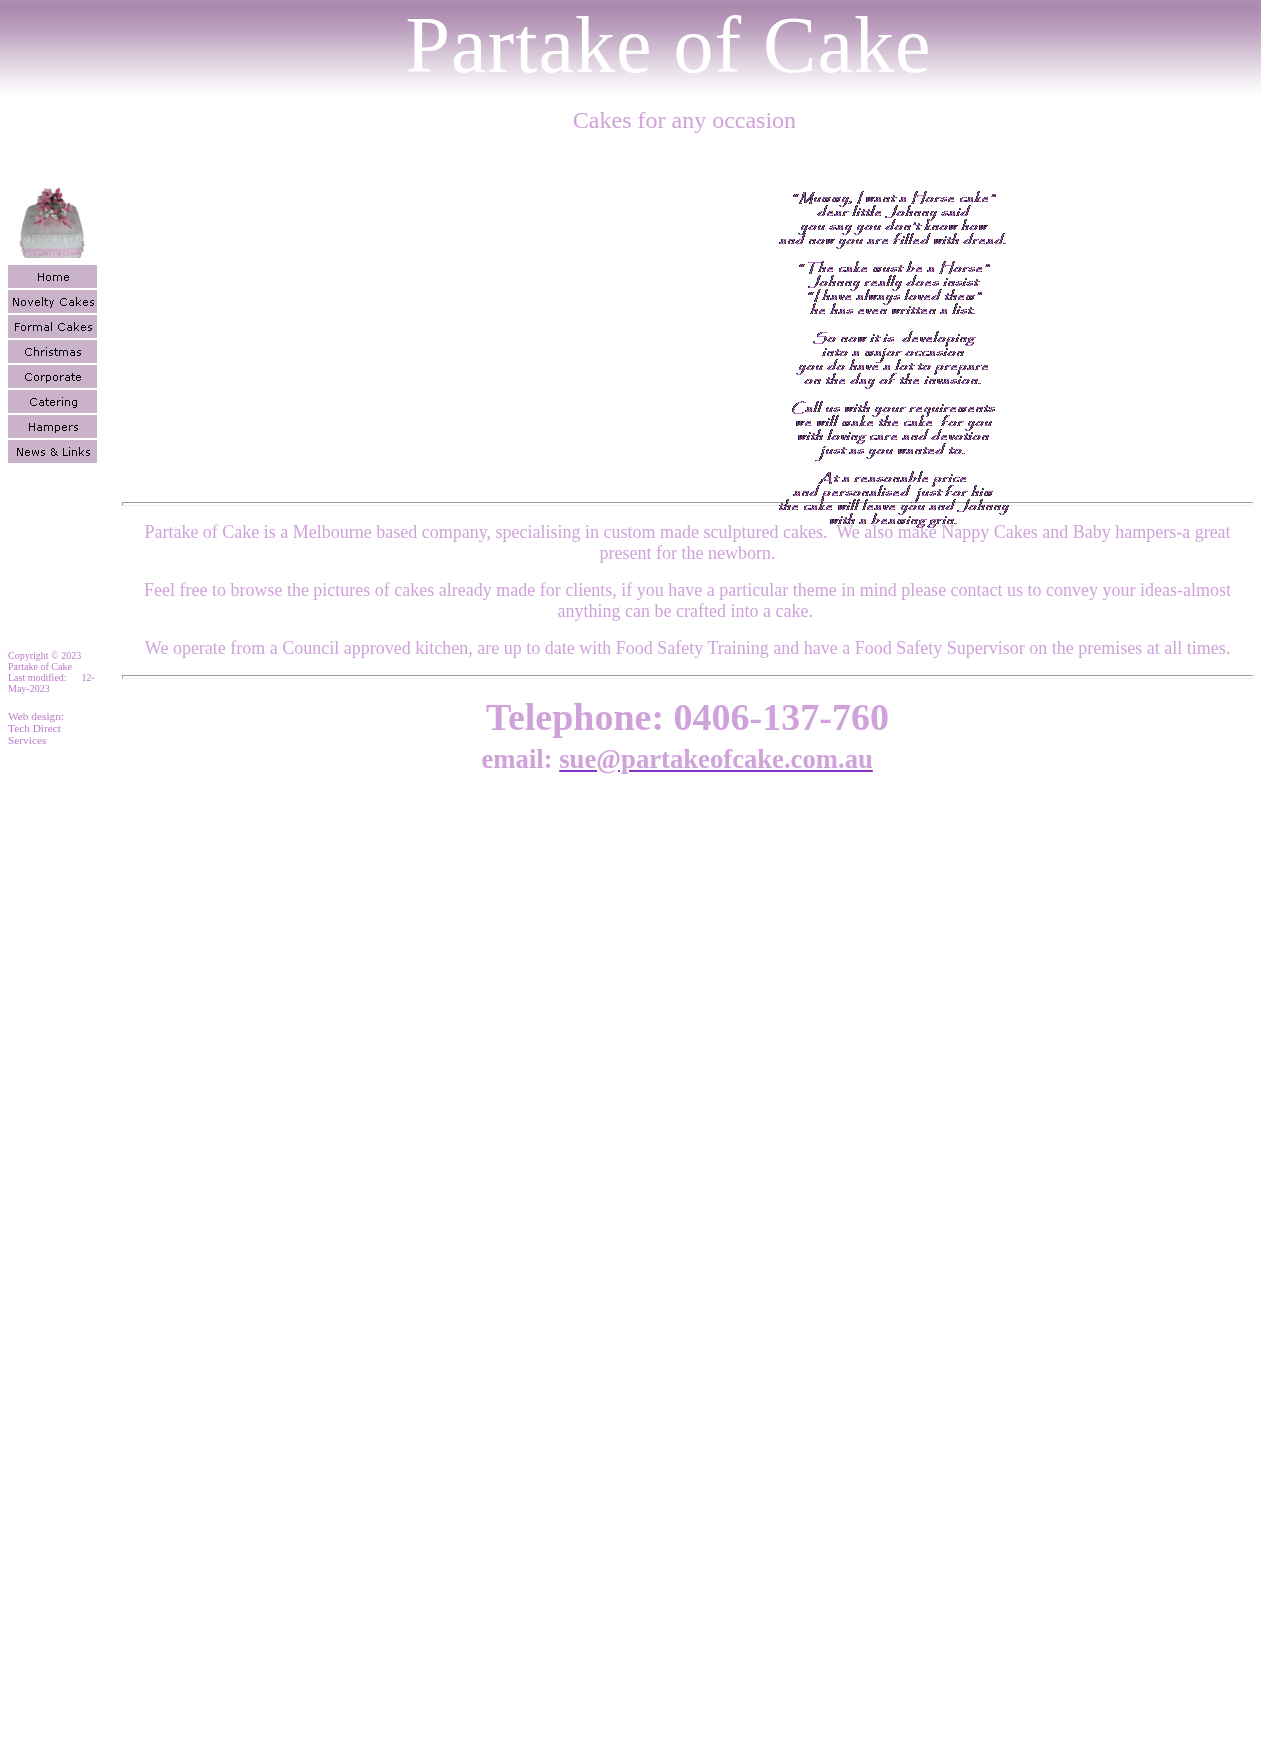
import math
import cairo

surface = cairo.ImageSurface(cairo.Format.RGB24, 1261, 1759)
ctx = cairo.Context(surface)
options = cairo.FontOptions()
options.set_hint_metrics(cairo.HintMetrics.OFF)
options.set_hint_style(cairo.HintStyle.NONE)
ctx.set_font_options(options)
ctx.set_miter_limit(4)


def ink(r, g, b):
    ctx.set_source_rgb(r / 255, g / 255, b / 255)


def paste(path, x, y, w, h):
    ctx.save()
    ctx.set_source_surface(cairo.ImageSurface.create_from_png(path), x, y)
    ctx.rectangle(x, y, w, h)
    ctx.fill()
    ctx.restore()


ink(255, 255, 255)
ctx.paint()
paste("pic1.png", 0, 0, 1261, 774)
surface.write_to_png("screenshot.png")
